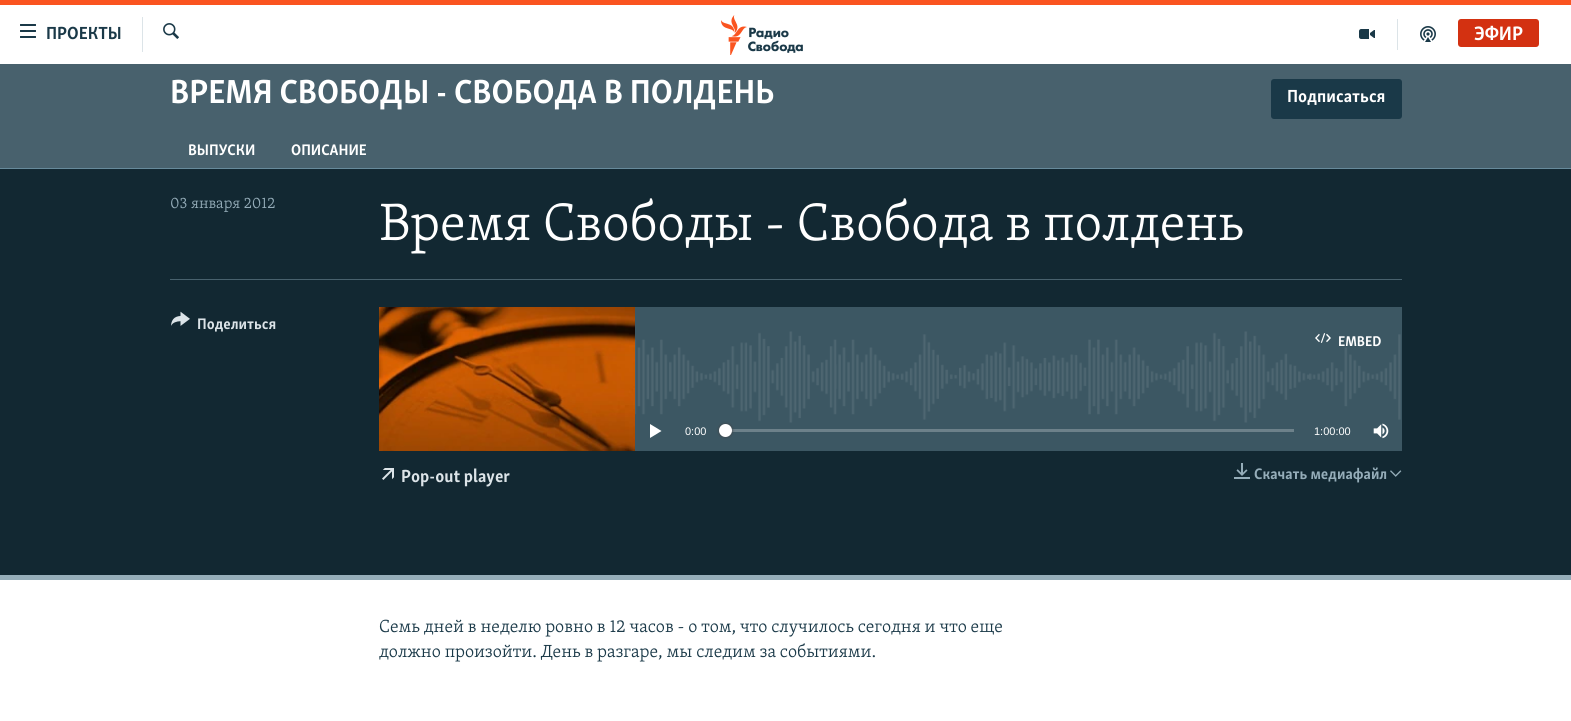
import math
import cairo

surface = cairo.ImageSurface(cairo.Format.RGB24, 1571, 721)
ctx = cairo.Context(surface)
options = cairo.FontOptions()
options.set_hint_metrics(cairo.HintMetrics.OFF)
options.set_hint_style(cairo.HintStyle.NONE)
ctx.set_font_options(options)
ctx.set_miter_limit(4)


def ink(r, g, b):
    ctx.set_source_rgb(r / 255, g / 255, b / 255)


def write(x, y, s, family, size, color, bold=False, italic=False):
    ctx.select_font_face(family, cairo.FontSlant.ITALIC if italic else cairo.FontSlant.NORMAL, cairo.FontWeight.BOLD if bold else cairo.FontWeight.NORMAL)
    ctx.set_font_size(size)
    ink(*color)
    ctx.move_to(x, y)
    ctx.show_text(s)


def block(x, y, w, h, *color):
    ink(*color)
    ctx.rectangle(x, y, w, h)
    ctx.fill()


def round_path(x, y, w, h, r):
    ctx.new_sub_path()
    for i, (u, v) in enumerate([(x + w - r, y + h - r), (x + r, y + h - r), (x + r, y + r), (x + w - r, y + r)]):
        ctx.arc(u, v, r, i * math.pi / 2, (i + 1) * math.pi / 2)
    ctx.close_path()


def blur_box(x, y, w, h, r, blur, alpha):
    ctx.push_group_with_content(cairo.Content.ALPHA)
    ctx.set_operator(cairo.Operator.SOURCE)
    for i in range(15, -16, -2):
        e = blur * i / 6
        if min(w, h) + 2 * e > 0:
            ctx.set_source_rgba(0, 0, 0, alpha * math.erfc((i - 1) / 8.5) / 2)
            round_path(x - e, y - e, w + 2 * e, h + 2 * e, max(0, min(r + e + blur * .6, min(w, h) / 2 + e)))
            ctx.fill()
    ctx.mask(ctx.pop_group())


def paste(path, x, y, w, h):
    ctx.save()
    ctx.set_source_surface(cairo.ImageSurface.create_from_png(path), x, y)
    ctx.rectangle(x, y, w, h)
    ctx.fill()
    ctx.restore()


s1 = dict(family="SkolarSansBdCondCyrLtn", size=18, color=(26, 57, 72), bold=True)
s2 = dict(family="SkolarSansBdCondCyrLtn", size=20, color=(255, 255, 255), bold=True)
s3 = dict(family="SkolarSansBdCondCyrLtn", size=34.25, color=(255, 255, 255), bold=True)
s4 = dict(family="SkolarSansBdCondCyrLtn", size=18, color=(255, 255, 255), bold=True)
s5 = dict(family="SkolarSansBdCondCyrLtn", size=15.75, color=(255, 255, 255), bold=True)
s6 = dict(family="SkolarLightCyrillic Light", size=15.75, color=(149, 173, 185))
s7 = dict(family="SkolarLightCyrillic Light", size=54, color=(255, 255, 255))
s8 = dict(family="SkolarSansBdCondCyrLtn", size=15.75, color=(220, 228, 232), bold=True)
s9 = dict(family="SkolarSansBdCondCyrLtn", size=14.5, color=(255, 255, 255), bold=True)
s10 = dict(family="Liberation Sans", size=11, color=(255, 255, 255))
s11 = dict(family="SkolarSansBdCondCyrLtn", size=18, color=(220, 228, 232), bold=True)
s12 = dict(family="SkolarSansBdCondCyrLtn", size=15.75, color=(149, 173, 185), bold=True)
s13 = dict(family="SkolarLightCyrillic Light", size=18, color=(26, 57, 72))

ink(255, 255, 255)
ctx.paint()
block(0, 0, 1571, 5, 250, 84, 32)
paste("pic1.png", 20, 24, 16, 14)
write(46, 39, "ПРОЕКТЫ", **s1)
block(142, 17, 1, 35, 220, 228, 232)
paste("pic2.png", 163, 23, 16, 16)
paste("pic3.png", 721, 15, 82, 40)
block(1397, 19, 1, 31, 220, 228, 232)
paste("pic4.png", 1359, 29, 16, 10)
paste("pic5.png", 1420, 26, 16, 16)
ink(211, 49, 17)
round_path(1458, 19, 81, 28, 3)
ctx.fill()
write(1474, 40, "ЭФИР", **s2)
block(0, 64, 1571, 104, 72, 97, 109)
write(170, 103, "ВРЕМЯ СВОБОДЫ - СВОБОДА В ПОЛДЕНЬ", **s3)
ink(26, 57, 72)
round_path(1271, 79, 131, 40, 3)
ctx.fill()
write(1287, 102, "Подписаться", **s4)
write(188, 155, "ВЫПУСКИ", **s5)
write(291, 155, "ОПИСАНИЕ", **s5)
block(0, 169, 1571, 406, 18, 40, 50)
block(0, 168, 1571, 1, 103, 138, 155)
block(0, 575, 1571, 5, 149, 173, 185)
write(170, 208, "03 января 2012", **s6)
write(379, 240, "Время Свободы - Свобода в полдень", **s7)
block(170, 279, 1232, 1, 72, 97, 109)
paste("pic6.png", 171, 311, 19, 15)
write(197, 329, "Поделиться", **s8)
block(635, 307, 767, 144, 60, 87, 99)
paste("pic7.png", 635, 331, 766, 92)
paste("pic8.png", 379, 307, 256, 144)
paste("pic9.png", 1315, 333, 16, 10)
write(1338, 346, "EMBED", **s9)
ctx.new_path()
ctx.move_to(650, 438)
ctx.line_to(661.5, 431)
ctx.line_to(650, 424)
ctx.close_path()
ctx.fill()
write(685, 435, "0:00", **s10)
block(726, 429, 568, 3, 109, 129, 138)
ink(65, 65, 68)
blur_box(719, 424, 13, 13, 6.5, 1.5, 1)
ink(255, 255, 255)
ctx.arc(725.5, 430.5, 6.5, 0, 2 * math.pi)
ctx.fill()
write(1314, 435, "1:00:00", **s10)
paste("pic10.png", 1373, 423, 16, 16)
paste("pic11.png", 382, 468, 12, 12)
write(401, 482, "Pop-out player", **s11)
paste("pic12.png", 1234, 463, 16, 16)
write(1254, 479, "Скачать медиафайл", **s12)
paste("pic13.png", 1390, 470, 12, 7)
write(379, 632, "Семь дней в неделю ровно в 12 часов - о том, что случилось сегодня и что еще", **s13)
write(379, 657, "должно произойти. День в разгаре, мы следим за событиями.", **s13)
surface.write_to_png("screenshot.png")
